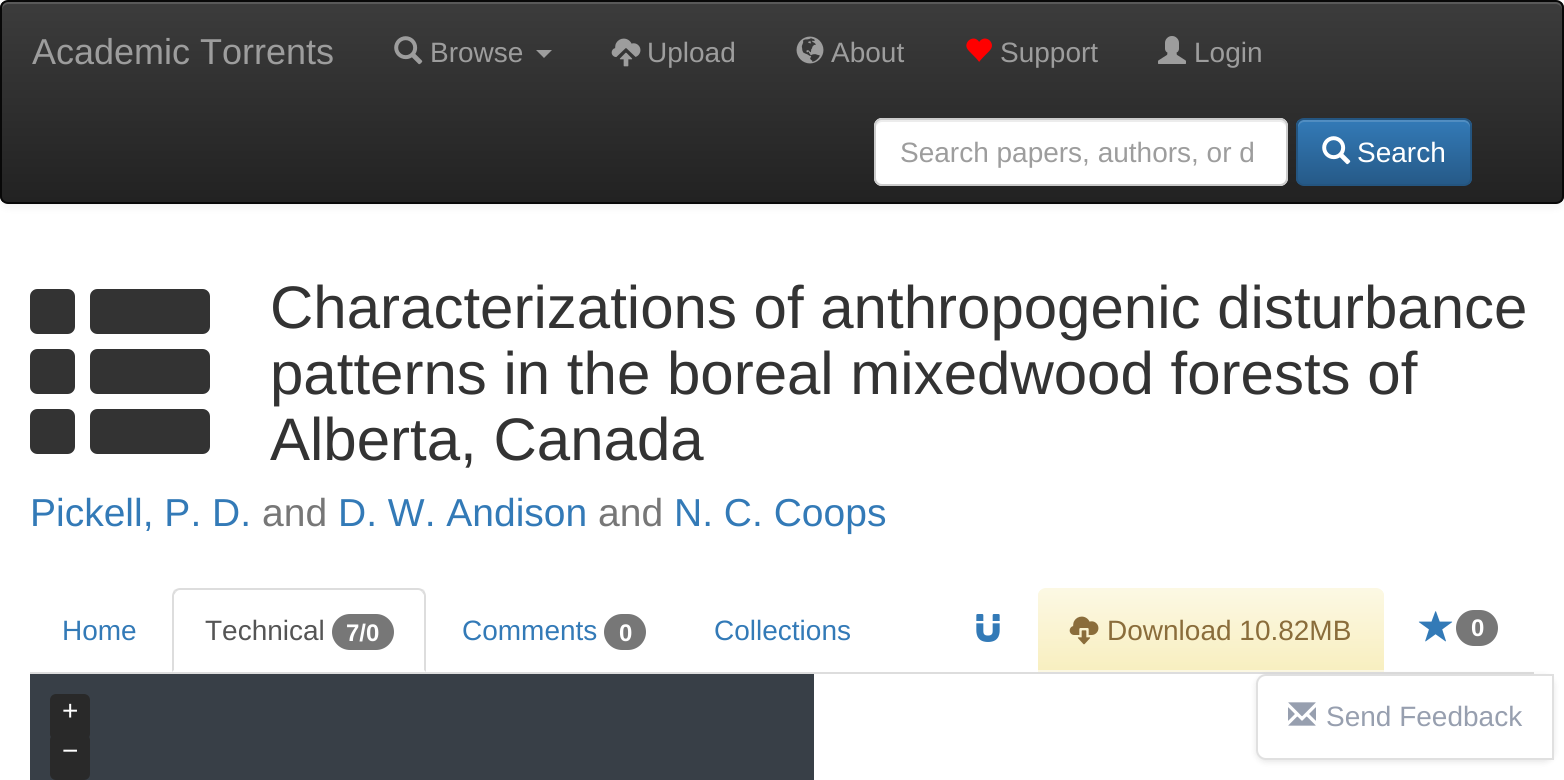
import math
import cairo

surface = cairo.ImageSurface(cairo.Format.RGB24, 1564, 780)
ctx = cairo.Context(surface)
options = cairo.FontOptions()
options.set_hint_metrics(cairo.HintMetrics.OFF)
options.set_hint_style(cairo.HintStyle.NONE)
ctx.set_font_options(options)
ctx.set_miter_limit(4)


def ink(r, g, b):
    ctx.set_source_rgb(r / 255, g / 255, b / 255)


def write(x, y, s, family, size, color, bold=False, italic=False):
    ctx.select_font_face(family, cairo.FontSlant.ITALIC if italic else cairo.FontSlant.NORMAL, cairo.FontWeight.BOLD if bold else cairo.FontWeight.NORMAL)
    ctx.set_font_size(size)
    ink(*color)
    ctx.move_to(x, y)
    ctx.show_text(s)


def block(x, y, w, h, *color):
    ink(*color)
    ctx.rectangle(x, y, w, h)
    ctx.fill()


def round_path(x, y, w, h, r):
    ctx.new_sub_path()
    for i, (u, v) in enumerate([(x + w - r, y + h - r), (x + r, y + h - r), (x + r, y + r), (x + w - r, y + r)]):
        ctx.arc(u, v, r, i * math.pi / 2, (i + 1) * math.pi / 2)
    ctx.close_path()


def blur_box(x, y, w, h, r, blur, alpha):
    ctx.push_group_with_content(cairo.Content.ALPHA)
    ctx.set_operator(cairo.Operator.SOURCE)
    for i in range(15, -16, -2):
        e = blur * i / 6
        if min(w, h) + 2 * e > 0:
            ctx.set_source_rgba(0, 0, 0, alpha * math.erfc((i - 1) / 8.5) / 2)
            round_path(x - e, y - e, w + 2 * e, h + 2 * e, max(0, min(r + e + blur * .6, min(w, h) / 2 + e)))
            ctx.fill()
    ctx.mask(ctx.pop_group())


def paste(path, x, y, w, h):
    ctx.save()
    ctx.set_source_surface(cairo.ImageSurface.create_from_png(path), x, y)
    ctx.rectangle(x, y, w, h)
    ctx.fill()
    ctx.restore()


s1 = dict(family="Liberation Sans", size=36, color=(157, 157, 157))
s2 = dict(family="Liberation Sans", size=28, color=(157, 157, 157))
s3 = dict(family="Liberation Sans", size=28, color=(255, 255, 255))
s4 = dict(family="Liberation Sans", size=60, color=(51, 51, 51))
s5 = dict(family="Liberation Sans", size=39, color=(51, 122, 183))
s6 = dict(family="Liberation Sans", size=39, color=(119, 119, 119))
s7 = dict(family="Liberation Sans", size=28, color=(51, 122, 183))
s8 = dict(family="Liberation Sans", size=28, color=(85, 85, 85))
s9 = dict(family="Liberation Sans", size=24, color=(255, 255, 255), bold=True)
s10 = dict(family="Liberation Sans", size=28, color=(138, 109, 59))
s11 = dict(family="Liberation Sans", size=28, color=(151, 159, 175))

ink(255, 255, 255)
ctx.paint()
ink(0, 0, 0)
blur_box(0, 2, 1564, 204, 8, 5, 0.07)
ctx.save()
round_path(0, 0, 1564, 204, 8)
ctx.clip()
gradient = cairo.LinearGradient(782, 2, 782, 202)
gradient.add_color_stop_rgba(0, 0.235, 0.235, 0.235, 1)
gradient.add_color_stop_rgba(1, 0.133, 0.133, 0.133, 1)
ctx.set_source(gradient)
ctx.rectangle(0, 2, 1564, 200)
ctx.fill()
ctx.restore()
ink(89, 89, 89)
ctx.new_path()
ctx.move_to(8, 4)
ctx.line_to(1556, 4)
ctx.curve_to(1559, 4, 1562, 7, 1562, 10)
ctx.curve_to(1562, 6, 1561, 2, 1556, 2)
ctx.line_to(8, 2)
ctx.curve_to(3, 2, 2, 6, 2, 10)
ctx.curve_to(2, 7, 5, 4, 8, 4)
ctx.close_path()
ctx.fill()
round_path(1, 1, 1562, 202, 7)
ink(8, 8, 8)
ctx.stroke()
write(32, 64, "Academic Torrents", **s1)
paste("pic1.png", 394, 36, 29, 29)
write(430, 62, "Browse", **s2)
ctx.new_path()
ctx.move_to(536, 50)
ctx.line_to(552, 50)
ctx.line_to(544, 58)
ctx.close_path()
ctx.fill()
paste("pic2.png", 611, 38, 30, 29)
write(647, 62, "Upload", **s2)
paste("pic3.png", 796, 36, 28, 28)
write(831, 62, "About", **s2)
paste("pic4.png", 966, 38, 26, 24)
write(1000, 62, "Support", **s2)
paste("pic5.png", 1158, 36, 28, 28)
write(1194, 62, "Login", **s2)
ink(255, 255, 255)
round_path(874, 118, 414, 68, 8)
ctx.fill()
ink(236, 236, 236)
ctx.new_path()
ctx.move_to(882, 122)
ctx.line_to(1280, 122)
ctx.curve_to(1283, 122, 1286, 125, 1286, 128)
ctx.curve_to(1286, 124, 1285, 120, 1280, 120)
ctx.line_to(882, 120)
ctx.curve_to(877, 120, 876, 124, 876, 128)
ctx.curve_to(876, 125, 879, 122, 882, 122)
ctx.close_path()
ctx.fill()
round_path(875, 119, 412, 66, 7)
ink(204, 204, 204)
ctx.stroke()
write(900, 162, "Search papers, authors, or d", **s2)
ctx.save()
round_path(1296, 118, 176, 68, 8)
ctx.clip()
gradient = cairo.LinearGradient(1384, 120, 1384, 184)
gradient.add_color_stop_rgba(0, 0.2, 0.478, 0.718, 1)
gradient.add_color_stop_rgba(1, 0.149, 0.353, 0.533, 1)
ctx.set_source(gradient)
ctx.rectangle(1296, 120, 176, 64)
ctx.fill()
ctx.restore()
ctx.set_source_rgba(1, 1, 1, 0.15)
ctx.new_path()
ctx.move_to(1304, 122)
ctx.line_to(1464, 122)
ctx.curve_to(1467, 122, 1470, 125, 1470, 128)
ctx.line_to(1470, 126)
ctx.curve_to(1470, 123, 1467, 120, 1464, 120)
ctx.line_to(1304, 120)
ctx.curve_to(1301, 120, 1298, 123, 1298, 126)
ctx.line_to(1298, 128)
ctx.curve_to(1298, 125, 1301, 122, 1304, 122)
ctx.close_path()
ctx.fill()
round_path(1297, 119, 174, 66, 7)
ink(36, 85, 128)
ctx.stroke()
paste("pic6.png", 1322, 136, 29, 29)
write(1357, 162, "Search", **s3)
paste("pic7.png", 30, 289, 180, 165)
write(270, 328, "Characterizations of anthropogenic disturbance", **s4)
write(270, 394, "patterns in the boreal mixedwood forests of", **s4)
write(270, 460, "Alberta, Canada", **s4)
write(30, 526, "Pickell, P. D.", **s5)
write(262, 526, "and", **s6)
write(338, 526, "D. W. Andison", **s5)
write(598, 526, "and", **s6)
write(674, 526, "N. C. Coops", **s5)
block(30, 672, 1504, 2, 221, 221, 221)
write(62, 640, "Home", **s7)
ink(221, 221, 221)
ctx.new_path()
ctx.move_to(180, 588)
ctx.curve_to(178, 588, 176, 589, 174, 590)
ctx.line_to(176, 592)
ctx.curve_to(177, 591, 178, 590, 180, 590)
ctx.line_to(418, 590)
ctx.curve_to(420, 590, 421, 591, 422, 592)
ctx.line_to(424, 590)
ctx.curve_to(422, 589, 420, 588, 418, 588)
ctx.close_path()
ctx.fill()
ctx.new_path()
ctx.move_to(426, 672)
ctx.line_to(426, 596)
ctx.curve_to(426, 594, 425, 592, 424, 590)
ctx.line_to(422, 592)
ctx.line_to(424, 595)
ctx.line_to(424, 670)
ctx.close_path()
ctx.fill()
ctx.new_path()
ctx.move_to(172, 672)
ctx.line_to(174, 670)
ctx.line_to(174, 595)
ctx.line_to(176, 592)
ctx.line_to(174, 590)
ctx.curve_to(173, 592, 172, 594, 172, 596)
ctx.close_path()
ctx.fill()
write(205, 640, "Technical", **s8)
ink(119, 119, 119)
round_path(332, 614, 62, 36, 18)
ctx.fill()
write(346, 641, "7/0", **s9)
write(462, 640, "Comments", **s7)
ink(119, 119, 119)
round_path(604, 614, 42, 36, 18)
ctx.fill()
write(619, 641, "0", **s9)
write(714, 640, "Collections", **s7)
paste("pic8.png", 976, 614, 24, 28)
ink(252, 248, 227)
ctx.new_path()
ctx.move_to(1046, 588)
ctx.line_to(1376, 588)
ctx.curve_to(1380.5, 588, 1384, 591.5, 1384, 596)
ctx.line_to(1384, 672)
ctx.line_to(1038, 672)
ctx.line_to(1038, 596)
ctx.curve_to(1038, 591.5, 1041.5, 588, 1046, 588)
ctx.close_path()
ctx.fill()
ctx.save()
ctx.new_path()
ctx.move_to(1046, 588)
ctx.line_to(1376, 588)
ctx.curve_to(1380.5, 588, 1384, 591.5, 1384, 596)
ctx.line_to(1384, 672)
ctx.line_to(1038, 672)
ctx.line_to(1038, 596)
ctx.curve_to(1038, 591.5, 1041.5, 588, 1046, 588)
ctx.close_path()
ctx.clip()
gradient = cairo.LinearGradient(1211, 590, 1211, 670)
gradient.add_color_stop_rgba(0, 0.988, 0.973, 0.89, 1)
gradient.add_color_stop_rgba(1, 0.973, 0.937, 0.753, 1)
ctx.set_source(gradient)
ctx.rectangle(1038, 590, 346, 80)
ctx.fill()
ctx.restore()
paste("pic9.png", 1069, 616, 30, 29)
write(1107, 640, "Download 10.82MB", **s10)
paste("pic10.png", 1418, 611, 35, 31)
ink(119, 119, 119)
round_path(1456, 610, 42, 36, 18)
ctx.fill()
write(1471, 636, "0", **s9)
block(30, 674, 784, 106, 56, 63, 71)
ink(41, 41, 41)
round_path(50, 694, 40, 46, 6)
ctx.fill()
write(62, 720, "+", **s3)
ink(41, 41, 41)
round_path(50, 734, 40, 46, 6)
ctx.fill()
write(62, 760, "−", **s3)
ink(0, 0, 0)
blur_box(1256, 676, 298, 86, 10, 3, 0.1)
ink(255, 255, 255)
ctx.new_path()
ctx.move_to(1266, 675)
ctx.line_to(1553, 675)
ctx.line_to(1553, 759)
ctx.line_to(1266, 759)
ctx.curve_to(1261, 759, 1257, 755, 1257, 750)
ctx.line_to(1257, 684)
ctx.curve_to(1257, 679, 1261, 675, 1266, 675)
ctx.close_path()
ctx.fill_preserve()
ink(224, 224, 224)
ctx.stroke()
paste("pic11.png", 1288, 702, 28, 24)
write(1326, 726, "Send Feedback", **s11)
surface.write_to_png("screenshot.png")
